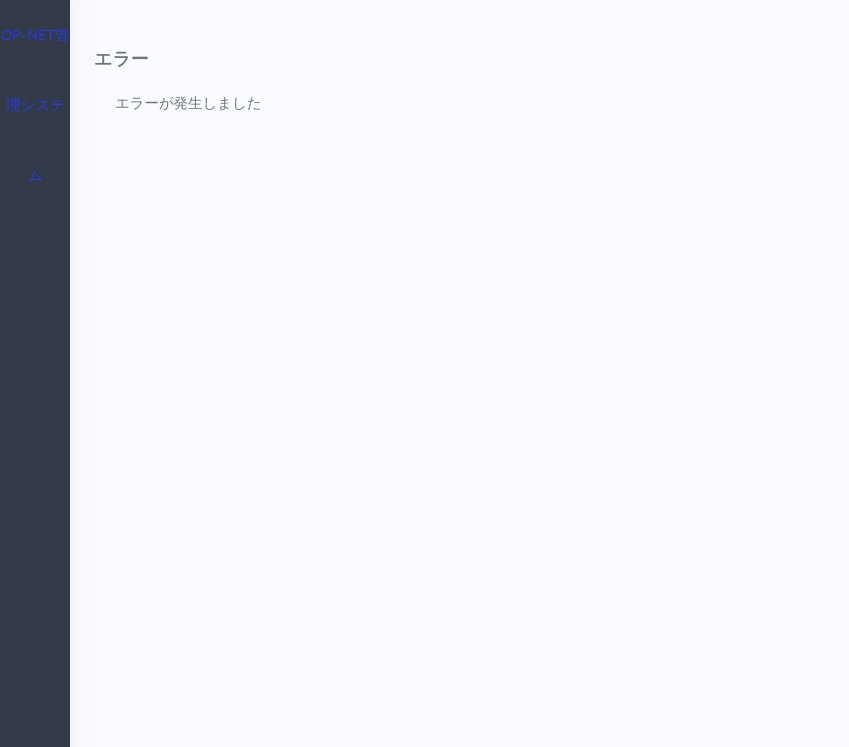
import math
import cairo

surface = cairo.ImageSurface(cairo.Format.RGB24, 849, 747)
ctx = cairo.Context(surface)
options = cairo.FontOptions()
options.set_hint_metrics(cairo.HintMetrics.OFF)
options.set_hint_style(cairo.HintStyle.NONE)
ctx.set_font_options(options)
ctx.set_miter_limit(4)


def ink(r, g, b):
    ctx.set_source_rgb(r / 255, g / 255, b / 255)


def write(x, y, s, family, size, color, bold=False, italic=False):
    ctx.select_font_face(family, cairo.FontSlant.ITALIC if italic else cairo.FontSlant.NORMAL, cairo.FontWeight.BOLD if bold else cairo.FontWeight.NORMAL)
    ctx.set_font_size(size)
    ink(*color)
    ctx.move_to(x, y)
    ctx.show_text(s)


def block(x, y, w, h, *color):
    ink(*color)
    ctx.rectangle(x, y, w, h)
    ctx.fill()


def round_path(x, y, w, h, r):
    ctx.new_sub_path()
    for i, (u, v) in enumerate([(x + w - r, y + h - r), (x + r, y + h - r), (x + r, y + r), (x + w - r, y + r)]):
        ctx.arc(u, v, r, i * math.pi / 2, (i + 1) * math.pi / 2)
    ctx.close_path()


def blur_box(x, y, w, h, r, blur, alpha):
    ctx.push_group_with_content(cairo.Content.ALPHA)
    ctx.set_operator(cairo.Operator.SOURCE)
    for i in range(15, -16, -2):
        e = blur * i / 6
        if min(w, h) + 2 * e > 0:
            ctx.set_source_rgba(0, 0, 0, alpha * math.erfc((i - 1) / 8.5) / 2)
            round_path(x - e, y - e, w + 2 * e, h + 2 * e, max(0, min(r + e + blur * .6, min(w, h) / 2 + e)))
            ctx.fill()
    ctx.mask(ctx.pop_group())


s1 = dict(family="Nunito", size=14.4, color=(43, 58, 240))
s2 = dict(family="WenQuanYi Zen Hei Medium", size=14.4, color=(43, 58, 240))
s3 = dict(family="WenQuanYi Zen Hei", size=18, color=(108, 117, 125), bold=True)
s4 = dict(family="WenQuanYi Zen Hei Medium", size=14.4, color=(108, 117, 125))

ink(250, 251, 254)
ctx.paint()
ink(154, 161, 171)
blur_box(0, 0, 70, 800, 0, 17.5, 0.15)
block(0, 0, 70, 747, 49, 58, 70)
write(1, 40, "OP-NET", **s1)
write(55, 40, "管", **s2)
write(6, 110, "理システ", **s2)
write(28, 180, "ム", **s2)
write(94, 65, "エラー", **s3)
write(115, 108, "エラーが発生しました", **s4)
surface.write_to_png("screenshot.png")
